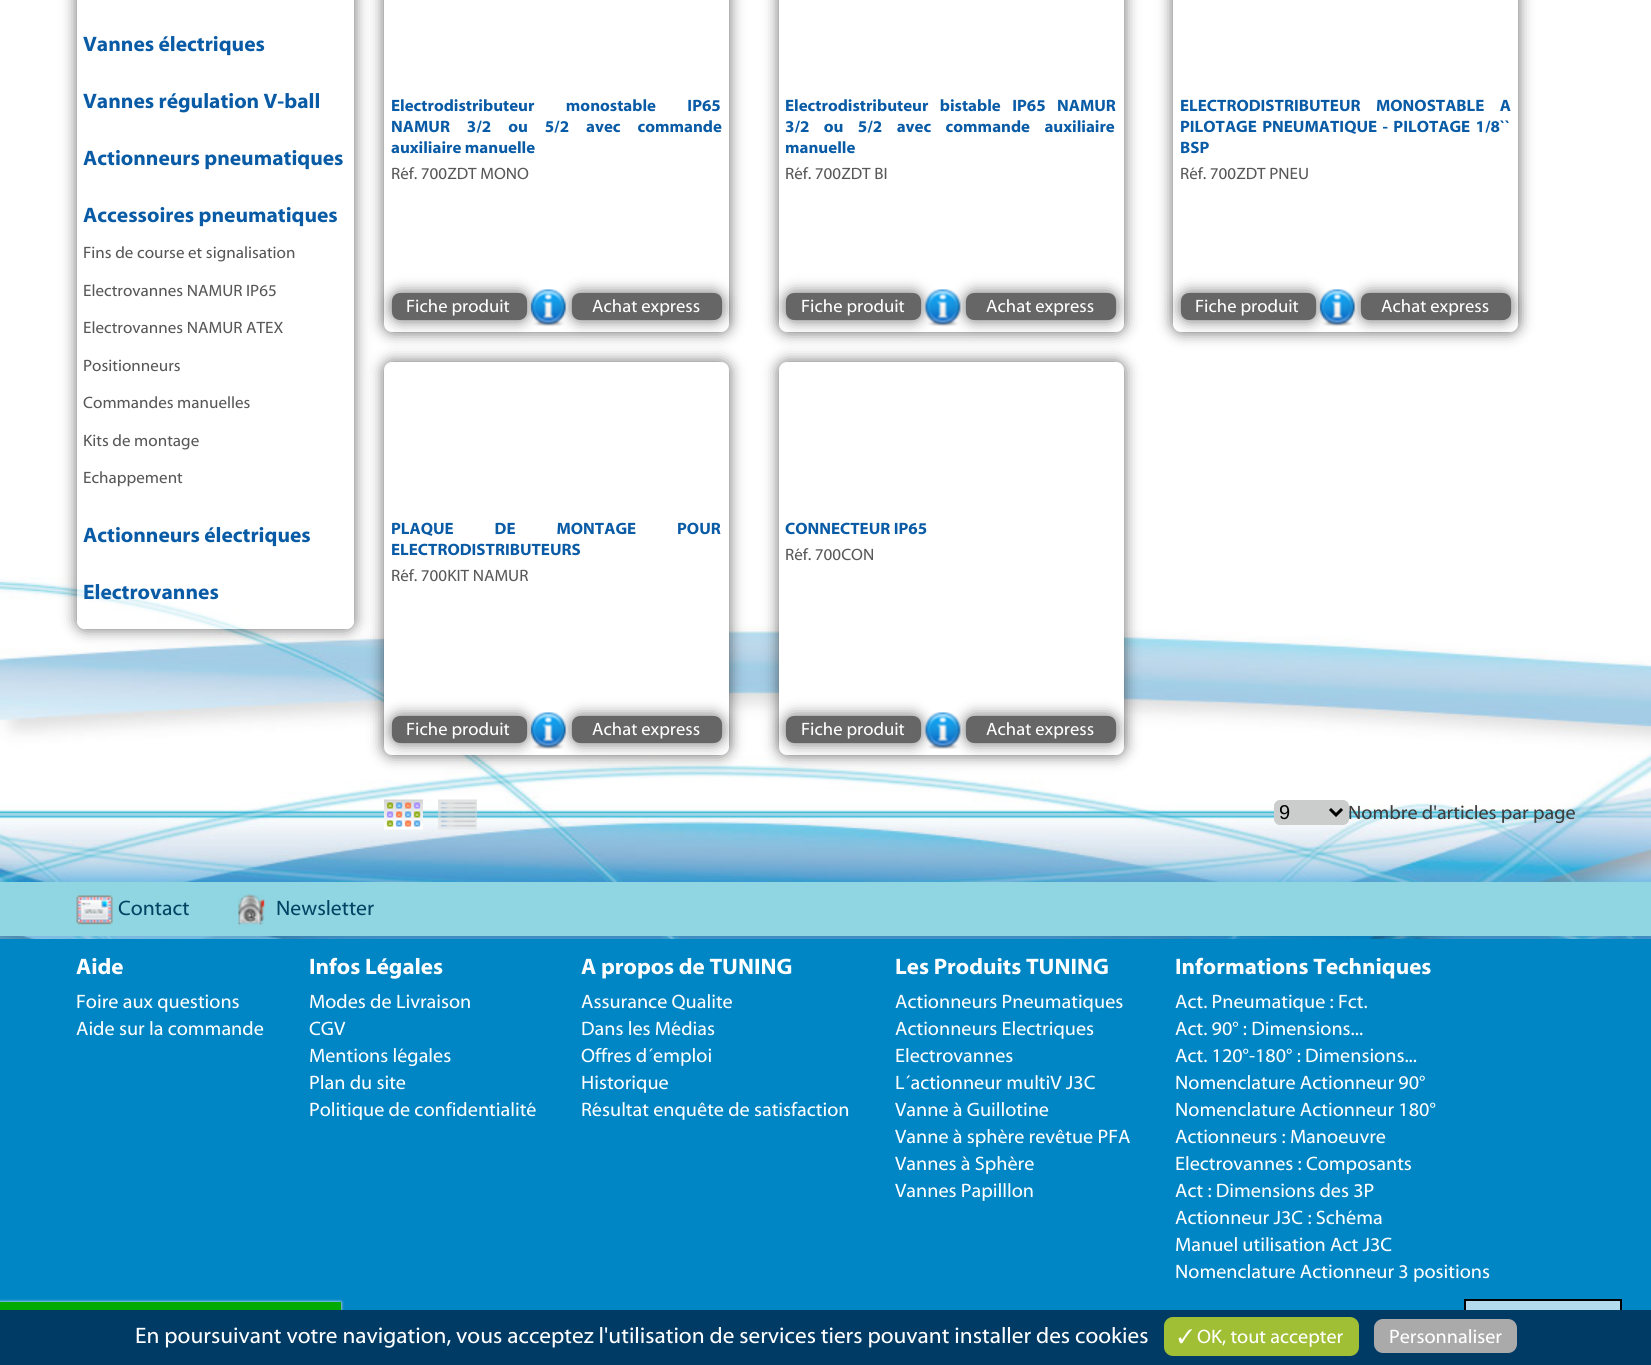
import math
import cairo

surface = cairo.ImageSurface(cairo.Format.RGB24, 1651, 1365)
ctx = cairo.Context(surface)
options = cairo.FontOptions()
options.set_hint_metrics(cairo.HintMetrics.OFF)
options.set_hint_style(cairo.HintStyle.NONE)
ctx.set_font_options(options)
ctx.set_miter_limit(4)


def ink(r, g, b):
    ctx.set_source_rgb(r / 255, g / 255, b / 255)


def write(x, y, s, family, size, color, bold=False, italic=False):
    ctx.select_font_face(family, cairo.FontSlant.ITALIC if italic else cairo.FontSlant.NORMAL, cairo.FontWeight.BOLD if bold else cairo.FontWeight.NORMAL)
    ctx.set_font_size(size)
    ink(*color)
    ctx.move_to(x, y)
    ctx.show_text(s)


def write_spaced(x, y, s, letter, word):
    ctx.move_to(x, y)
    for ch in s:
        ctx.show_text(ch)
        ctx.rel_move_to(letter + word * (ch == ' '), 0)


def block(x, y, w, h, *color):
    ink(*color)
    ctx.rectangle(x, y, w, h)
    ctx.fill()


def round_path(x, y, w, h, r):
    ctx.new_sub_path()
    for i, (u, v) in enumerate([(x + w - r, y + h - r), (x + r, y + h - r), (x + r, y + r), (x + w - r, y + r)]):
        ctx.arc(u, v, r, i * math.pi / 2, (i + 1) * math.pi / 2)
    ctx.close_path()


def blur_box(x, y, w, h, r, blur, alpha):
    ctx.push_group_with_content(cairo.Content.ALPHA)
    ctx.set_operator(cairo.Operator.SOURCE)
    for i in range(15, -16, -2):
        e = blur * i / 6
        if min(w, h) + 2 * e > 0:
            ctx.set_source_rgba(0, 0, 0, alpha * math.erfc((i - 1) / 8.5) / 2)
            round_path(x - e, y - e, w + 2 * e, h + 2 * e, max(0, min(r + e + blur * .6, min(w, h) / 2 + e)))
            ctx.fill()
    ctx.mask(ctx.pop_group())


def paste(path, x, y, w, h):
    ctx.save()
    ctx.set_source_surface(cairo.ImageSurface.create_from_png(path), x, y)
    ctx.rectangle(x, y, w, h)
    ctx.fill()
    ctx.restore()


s1 = dict(family="Myriad", size=21, color=(9, 91, 166), bold=True)
s2 = dict(family="Myriad", size=16.5, color=(88, 88, 88))
s3 = dict(family="Myriad", size=16.5, color=(9, 91, 166), bold=True)
s4 = dict(family="Myriad", size=18, color=(255, 255, 255))
s5 = dict(family="Liberation Sans", size=20, color=(0, 0, 0))
s6 = dict(family="Myriad", size=19.5, color=(62, 60, 61))
s7 = dict(family="Myriad", size=21, color=(1, 67, 99))
s8 = dict(family="Myriad", size=22.5, color=(255, 255, 255), bold=True)
s9 = dict(family="Myriad", size=19.5, color=(255, 255, 255))
s10 = dict(family="Myriad", size=22.5, color=(255, 255, 255))
s11 = dict(family="FreeSans", size=19.5, color=(255, 255, 255))

ink(255, 255, 255)
ctx.paint()
paste("pic1.png", 0, 577, 1651, 362)
ctx.save()
ctx.set_fill_rule(cairo.FillRule.EVEN_ODD)
ctx.new_path()
ctx.move_to(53, 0)
ctx.line_to(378, 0)
ctx.line_to(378, 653)
ctx.line_to(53, 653)
ctx.close_path()
ctx.move_to(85, -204)
ctx.line_to(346, -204)
ctx.curve_to(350.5, -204, 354, -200.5, 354, -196)
ctx.line_to(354, 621)
ctx.curve_to(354, 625.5, 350.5, 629, 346, 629)
ctx.line_to(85, 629)
ctx.curve_to(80.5, 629, 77, 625.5, 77, 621)
ctx.line_to(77, -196)
ctx.curve_to(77, -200.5, 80.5, -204, 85, -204)
ctx.close_path()
ctx.clip()
ink(0, 0, 0)
blur_box(77, -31, 277, 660, 8, 7.5, 0.6)
ctx.restore()
ctx.set_source_rgba(1, 1, 1, 0.6)
round_path(77, -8, 277, 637, 8)
ctx.fill()
write(83, 51, "Vannes électriques", **s1)
write(83, 108, "Vannes régulation V-ball", **s1)
write(83, 165, "Actionneurs pneumatiques", **s1)
write(83, 222, "Accessoires pneumatiques", **s1)
write(83, 258, "Fins de course et signalisation", **s2)
write(83, 296, "Electrovannes NAMUR IP65", **s2)
write(83, 333, "Electrovannes NAMUR ATEX", **s2)
write(83, 371, "Positionneurs", **s2)
write(83, 408, "Commandes manuelles", **s2)
write(83, 446, "Kits de montage", **s2)
write(83, 483, "Echappement", **s2)
write(83, 542, "Actionneurs électriques", **s1)
write(83, 599, "Electrovannes", **s1)
ink(0, 0, 0)
blur_box(384, -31, 345, 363, 8, 7.5, 0.6)
ink(255, 255, 255)
round_path(384, -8, 345, 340, 8)
ctx.fill()
ctx.set_font_size(16.5)
ink(9, 91, 166)
write_spaced(391, 111, "Electrodistributeur monostable IP65", 0, 28)
write_spaced(391, 132, "NAMUR 3/2 ou 5/2 avec commande", 0, 13.5)
write(391, 153, "auxiliaire manuelle", **s3)
write(391, 179, "Réf. 700ZDT MONO", **s2)
ink(0, 0, 0)
blur_box(392, 293, 135, 27, 8, 7.5, 0.6)
ink(102, 102, 102)
round_path(392, 293, 135, 27, 8)
ctx.fill()
write(406, 312, "Fiche produit", **s4)
paste("pic2.png", 530, 289, 36, 38)
ink(0, 0, 0)
blur_box(572, 293, 150, 27, 8, 7.5, 0.6)
ink(102, 102, 102)
round_path(572, 293, 150, 27, 8)
ctx.fill()
write(592, 312, "Achat express", **s4)
ink(0, 0, 0)
blur_box(779, -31, 345, 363, 8, 7.5, 0.6)
ink(255, 255, 255)
round_path(779, -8, 345, 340, 8)
ctx.fill()
ctx.select_font_face("Myriad", cairo.FontSlant.NORMAL, cairo.FontWeight.BOLD)
ctx.set_font_size(16.5)
ink(9, 91, 166)
write_spaced(785, 111, "Electrodistributeur bistable IP65 NAMUR", 0, 8)
write_spaced(785, 132, "3/2 ou 5/2 avec commande auxiliaire", 0, 11)
write(785, 153, "manuelle", **s3)
write(785, 179, "Réf. 700ZDT BI", **s2)
ink(0, 0, 0)
blur_box(786, 293, 135, 27, 8, 7.5, 0.6)
ink(102, 102, 102)
round_path(786, 293, 135, 27, 8)
ctx.fill()
write(801, 312, "Fiche produit", **s4)
paste("pic3.png", 924, 289, 37, 38)
ink(0, 0, 0)
blur_box(966, 293, 150, 27, 8, 7.5, 0.6)
ink(102, 102, 102)
round_path(966, 293, 150, 27, 8)
ctx.fill()
write(986, 312, "Achat express", **s4)
ink(0, 0, 0)
blur_box(1173, -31, 345, 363, 8, 7.5, 0.6)
ink(255, 255, 255)
round_path(1173, -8, 345, 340, 8)
ctx.fill()
ctx.select_font_face("Myriad", cairo.FontSlant.NORMAL, cairo.FontWeight.BOLD)
ctx.set_font_size(16.5)
ink(9, 91, 166)
write_spaced(1180, 111, "ELECTRODISTRIBUTEUR MONOSTABLE A", 0, 12)
write_spaced(1180, 132, "PILOTAGE PNEUMATIQUE - PILOTAGE 1/8``", 0, 2)
write(1180, 153, "BSP", **s3)
write(1180, 179, "Réf. 700ZDT PNEU", **s2)
ink(0, 0, 0)
blur_box(1181, 293, 135, 27, 8, 7.5, 0.6)
ink(102, 102, 102)
round_path(1181, 293, 135, 27, 8)
ctx.fill()
write(1195, 312, "Fiche produit", **s4)
paste("pic2.png", 1319, 289, 36, 38)
ink(0, 0, 0)
blur_box(1361, 293, 150, 27, 8, 7.5, 0.6)
ink(102, 102, 102)
round_path(1361, 293, 150, 27, 8)
ctx.fill()
write(1381, 312, "Achat express", **s4)
ink(0, 0, 0)
blur_box(384, 362, 345, 393, 8, 7.5, 0.6)
ink(255, 255, 255)
round_path(384, 362, 345, 393, 8)
ctx.fill()
ctx.select_font_face("Myriad", cairo.FontSlant.NORMAL, cairo.FontWeight.BOLD)
ctx.set_font_size(16.5)
ink(9, 91, 166)
write_spaced(391, 534, "PLAQUE DE MONTAGE POUR", 0, 37.5)
write(391, 555, "ELECTRODISTRIBUTEURS", **s3)
write(391, 581, "Réf. 700KIT NAMUR", **s2)
ink(0, 0, 0)
blur_box(392, 716, 135, 27, 8, 7.5, 0.6)
ink(102, 102, 102)
round_path(392, 716, 135, 27, 8)
ctx.fill()
write(406, 735, "Fiche produit", **s4)
paste("pic2.png", 530, 712, 36, 38)
ink(0, 0, 0)
blur_box(572, 716, 150, 27, 8, 7.5, 0.6)
ink(102, 102, 102)
round_path(572, 716, 150, 27, 8)
ctx.fill()
write(592, 735, "Achat express", **s4)
ink(0, 0, 0)
blur_box(779, 362, 345, 393, 8, 7.5, 0.6)
ink(255, 255, 255)
round_path(779, 362, 345, 393, 8)
ctx.fill()
write(785, 534, "CONNECTEUR IP65", **s3)
write(785, 560, "Réf. 700CON", **s2)
ink(0, 0, 0)
blur_box(786, 716, 135, 27, 8, 7.5, 0.6)
ink(102, 102, 102)
round_path(786, 716, 135, 27, 8)
ctx.fill()
write(801, 735, "Fiche produit", **s4)
paste("pic3.png", 924, 712, 37, 38)
ink(0, 0, 0)
blur_box(966, 716, 150, 27, 8, 7.5, 0.6)
ink(102, 102, 102)
round_path(966, 716, 150, 27, 8)
ctx.fill()
write(986, 735, "Achat express", **s4)
paste("pic4.png", 384, 799, 39, 31)
paste("pic5.png", 438, 799, 39, 31)
ink(203, 205, 204)
round_path(1274, 800, 75, 25, 6)
ctx.fill()
ctx.new_path()
ctx.move_to(1330, 809)
ctx.line_to(1336, 815)
ctx.line_to(1342, 809)
ink(0, 0, 0)
ctx.set_line_width(3)
ctx.stroke()
write(1279, 819, "9", **s5)
write(1348, 819, "Nombre d'articles par page", **s6)
block(0, 882, 1651, 54, 144, 214, 226)
paste("pic6.png", 76, 895, 37, 30)
write(118, 915, "Contact", **s7)
paste("pic7.png", 238, 894, 27, 32)
write(276, 915, "Newsletter", **s7)
block(0, 939, 1651, 371, 0, 134, 197)
write(76, 974, "Aide", **s8)
write(76, 1008, "Foire aux questions", **s9)
write(76, 1035, "Aide sur la commande", **s9)
write(309, 974, "Infos Légales", **s8)
write(309, 1008, "Modes de Livraison", **s9)
write(309, 1035, "CGV", **s9)
write(309, 1062, "Mentions légales", **s9)
write(309, 1089, "Plan du site", **s9)
write(309, 1116, "Politique de confidentialité", **s9)
write(581, 974, "A propos de TUNING", **s8)
write(581, 1008, "Assurance Qualite", **s9)
write(581, 1035, "Dans les Médias", **s9)
write(581, 1062, "Offres d´emploi", **s9)
write(581, 1089, "Historique", **s9)
write(581, 1116, "Résultat enquête de satisfaction", **s9)
write(895, 974, "Les Produits TUNING", **s8)
write(895, 1008, "Actionneurs Pneumatiques", **s9)
write(895, 1035, "Actionneurs Electriques", **s9)
write(895, 1062, "Electrovannes", **s9)
write(895, 1089, "L´actionneur multiV J3C", **s9)
write(895, 1116, "Vanne à Guillotine", **s9)
write(895, 1143, "Vanne à sphère revêtue PFA", **s9)
write(895, 1170, "Vannes à Sphère", **s9)
write(895, 1197, "Vannes Papilllon", **s9)
write(1175, 974, "Informations Techniques", **s8)
write(1175, 1008, "Act. Pneumatique : Fct.", **s9)
write(1175, 1035, "Act. 90° : Dimensions...", **s9)
write(1175, 1062, "Act. 120°-180° : Dimensions...", **s9)
write(1175, 1089, "Nomenclature Actionneur 90°", **s9)
write(1175, 1116, "Nomenclature Actionneur 180°", **s9)
write(1175, 1143, "Actionneurs : Manoeuvre", **s9)
write(1175, 1170, "Electrovannes : Composants", **s9)
write(1175, 1197, "Act : Dimensions des 3P", **s9)
write(1175, 1224, "Actionneur J3C : Schéma", **s9)
write(1175, 1251, "Manuel utilisation Act J3C", **s9)
write(1175, 1278, "Nomenclature Actionneur 3 positions", **s9)
ink(85, 85, 85)
blur_box(0, 1304, 341, 7, 0, 1.5, 1)
ink(255, 255, 255)
blur_box(0, 1302, 341, 8, 0, 1.5, 1)
block(0, 1302, 341, 8, 0, 170, 0)
block(1466, 1301, 154, 9, 179, 219, 238)
ctx.rectangle(1465, 1300, 156, 49)
ink(0, 0, 0)
ctx.set_line_width(2)
ctx.stroke()
block(0, 1310, 1651, 55, 0, 59, 102)
write(135, 1343, "En poursuivant votre navigation, vous acceptez l'utilisation de services tiers pouvant installer des cookies", **s10)
ink(161, 191, 53)
round_path(1164, 1317, 195, 39, 9)
ctx.fill()
write(1178, 1343, "✓", **s11)
write(1197, 1343, "OK, tout accepter", **s9)
ink(170, 170, 170)
round_path(1374, 1319, 143, 34, 9)
ctx.fill()
write(1389, 1343, "Personnaliser", **s9)
surface.write_to_png("screenshot.png")
